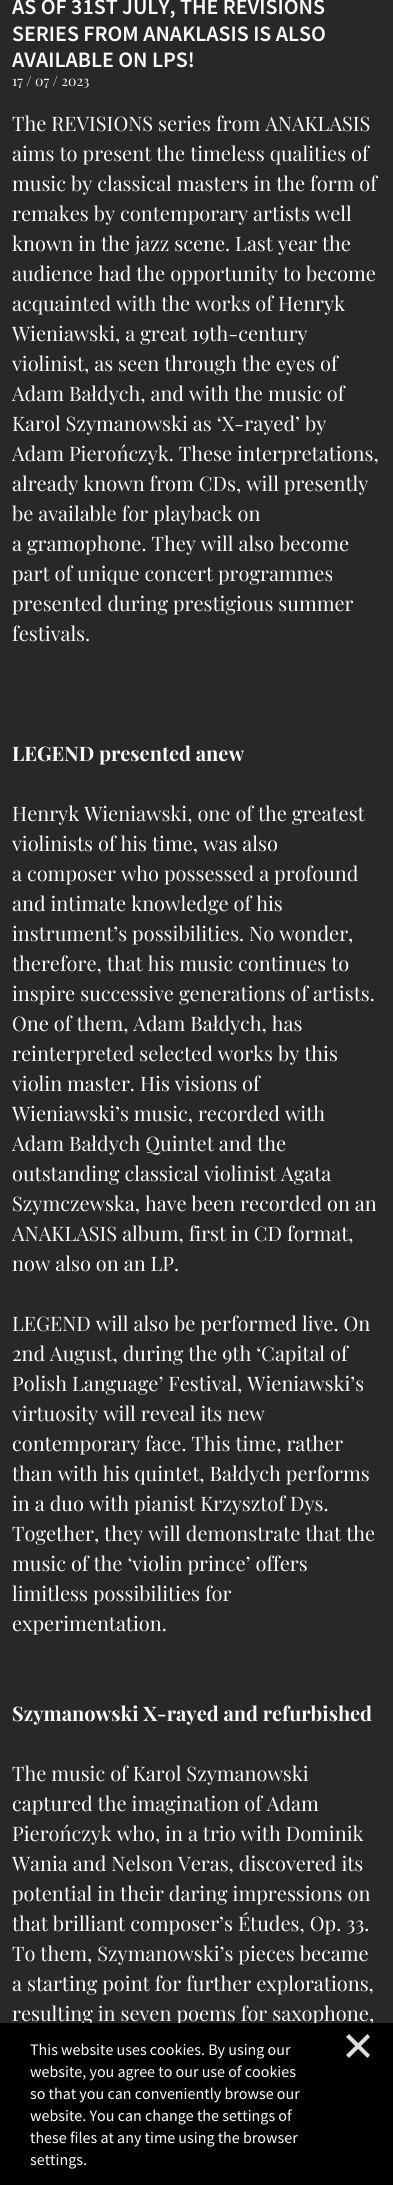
import math
import cairo

surface = cairo.ImageSurface(cairo.Format.RGB24, 393, 2185)
ctx = cairo.Context(surface)
options = cairo.FontOptions()
options.set_hint_metrics(cairo.HintMetrics.OFF)
options.set_hint_style(cairo.HintStyle.NONE)
ctx.set_font_options(options)
ctx.set_miter_limit(4)


def ink(r, g, b):
    ctx.set_source_rgb(r / 255, g / 255, b / 255)


def write(x, y, s, family, size, color, bold=False, italic=False):
    ctx.select_font_face(family, cairo.FontSlant.ITALIC if italic else cairo.FontSlant.NORMAL, cairo.FontWeight.BOLD if bold else cairo.FontWeight.NORMAL)
    ctx.set_font_size(size)
    ink(*color)
    ctx.move_to(x, y)
    ctx.show_text(s)


def block(x, y, w, h, *color):
    ink(*color)
    ctx.rectangle(x, y, w, h)
    ctx.fill()


s1 = dict(family="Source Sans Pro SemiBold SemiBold", size=22, color=(255, 255, 255))
s2 = dict(family="Playfair Display", size=14, color=(255, 255, 255))
s3 = dict(family="Playfair Display", size=20, color=(255, 255, 255))
s4 = dict(family="Playfair Display", size=20, color=(255, 255, 255), bold=True)
s5 = dict(family="Source Sans Pro", size=16, color=(255, 255, 255))

ink(40, 40, 40)
ctx.paint()
write(12, 14, "AS OF 31ST JULY, THE REVISIONS", **s1)
write(12, 41, "SERIES FROM ANAKLASIS IS ALSO", **s1)
write(12, 67, "AVAILABLE ON LPS!", **s1)
write(12, 86, "17 / 07 / 2023", **s2)
write(12, 131, "The REVISIONS series from ANAKLASIS", **s3)
write(12, 161, "aims to present the timeless qualities of", **s3)
write(12, 191, "music by classical masters in the form of", **s3)
write(12, 221, "remakes by contemporary artists well", **s3)
write(12, 251, "known in the jazz scene. Last year the", **s3)
write(12, 281, "audience had the opportunity to become", **s3)
write(12, 311, "acquainted with the works of Henryk", **s3)
write(12, 341, "Wieniawski, a great 19th-century", **s3)
write(12, 371, "violinist, as seen through the eyes of", **s3)
write(12, 401, "Adam Bałdych, and with the music of", **s3)
write(12, 431, "Karol Szymanowski as ‘X-rayed’ by", **s3)
write(12, 461, "Adam Pierończyk. These interpretations,", **s3)
write(12, 491, "already known from CDs, will presently", **s3)
write(12, 521, "be available for playback on", **s3)
write(12, 551, "a gramophone. They will also become", **s3)
write(12, 581, "part of unique concert programmes", **s3)
write(12, 611, "presented during prestigious summer", **s3)
write(12, 641, "festivals.", **s3)
write(12, 761, "LEGEND presented anew", **s4)
write(12, 821, "Henryk Wieniawski, one of the greatest", **s3)
write(12, 851, "violinists of his time, was also", **s3)
write(12, 881, "a composer who possessed a profound", **s3)
write(12, 911, "and intimate knowledge of his", **s3)
write(12, 941, "instrument’s possibilities. No wonder,", **s3)
write(12, 971, "therefore, that his music continues to", **s3)
write(12, 1001, "inspire successive generations of artists.", **s3)
write(12, 1031, "One of them, Adam Bałdych, has", **s3)
write(12, 1061, "reinterpreted selected works by this", **s3)
write(12, 1091, "violin master. His visions of", **s3)
write(12, 1121, "Wieniawski’s music, recorded with", **s3)
write(12, 1151, "Adam Bałdych Quintet and the", **s3)
write(12, 1181, "outstanding classical violinist Agata", **s3)
write(12, 1211, "Szymczewska, have been recorded on an", **s3)
write(12, 1241, "ANAKLASIS album, first in CD format,", **s3)
write(12, 1271, "now also on an LP.", **s3)
write(12, 1331, "LEGEND will also be performed live. On", **s3)
write(12, 1361, "2nd August, during the 9th ‘Capital of", **s3)
write(12, 1391, "Polish Language’ Festival, Wieniawski’s", **s3)
write(12, 1421, "virtuosity will reveal its new", **s3)
write(12, 1451, "contemporary face. This time, rather", **s3)
write(12, 1481, "than with his quintet, Bałdych performs", **s3)
write(12, 1511, "in a duo with pianist Krzysztof Dys.", **s3)
write(12, 1541, "Together, they will demonstrate that the", **s3)
write(12, 1571, "music of the ‘violin prince’ offers", **s3)
write(12, 1601, "limitless possibilities for", **s3)
write(12, 1631, "experimentation.", **s3)
write(12, 1721, "Szymanowski X-rayed and refurbished", **s4)
write(12, 1781, "The music of Karol Szymanowski", **s3)
write(12, 1811, "captured the imagination of Adam", **s3)
write(12, 1841, "Pierończyk who, in a trio with Dominik", **s3)
write(12, 1871, "Wania and Nelson Veras, discovered its", **s3)
write(12, 1901, "potential in their daring impressions on", **s3)
write(12, 1931, "that brilliant composer’s Études, Op. 33.", **s3)
write(12, 1961, "To them, Szymanowski’s pieces became", **s3)
write(12, 1991, "a starting point for further explorations,", **s3)
write(12, 2021, "resulting in seven poems for saxophone,", **s3)
block(0, 2023, 393, 162, 0, 0, 0)
write(30, 2055, "This website uses cookies. By using our", **s5)
ink(222, 222, 222)
ctx.new_path()
ctx.move_to(346, 2055)
ctx.line_to(367.5, 2034)
ctx.line_to(370, 2037)
ctx.line_to(349, 2058)
ctx.close_path()
ctx.fill()
ctx.new_path()
ctx.move_to(367.5, 2058)
ctx.line_to(346, 2037)
ctx.line_to(349, 2034)
ctx.line_to(370, 2055)
ctx.close_path()
ctx.fill()
write(30, 2077, "website, you agree to our use of cookies", **s5)
write(30, 2099, "so that you can conveniently browse our", **s5)
write(30, 2121, "website. You can change the settings of", **s5)
write(30, 2143, "these files at any time using the browser", **s5)
write(30, 2165, "settings.", **s5)
surface.write_to_png("screenshot.png")
